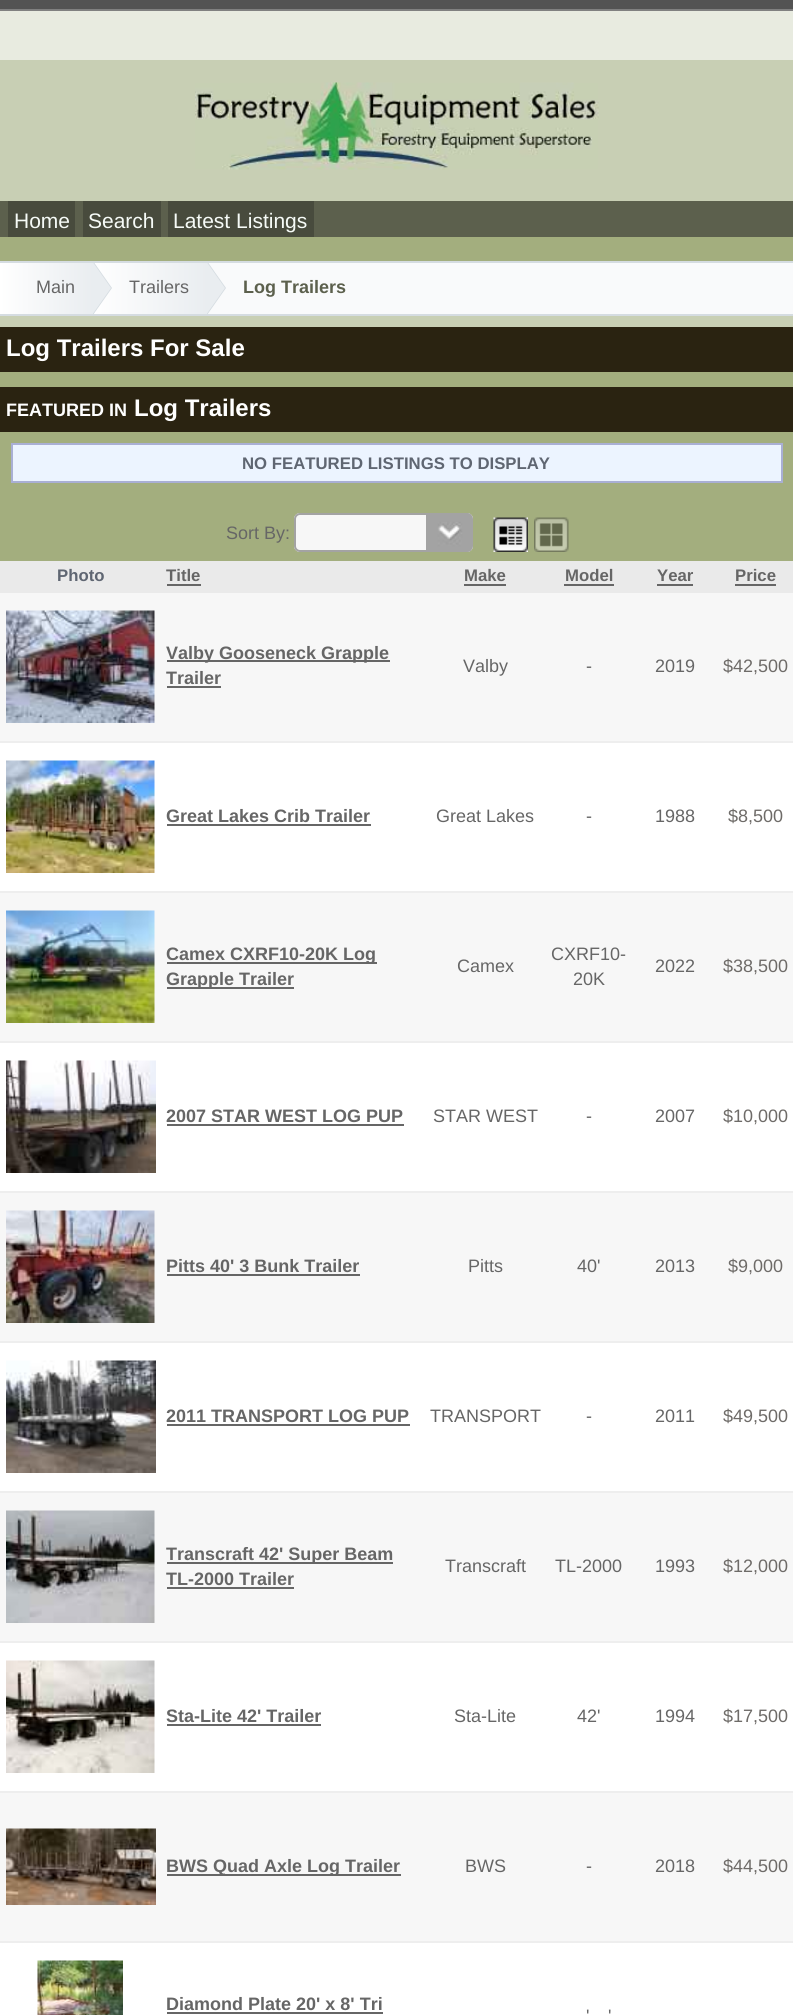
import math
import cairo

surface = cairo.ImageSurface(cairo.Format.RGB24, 793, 2015)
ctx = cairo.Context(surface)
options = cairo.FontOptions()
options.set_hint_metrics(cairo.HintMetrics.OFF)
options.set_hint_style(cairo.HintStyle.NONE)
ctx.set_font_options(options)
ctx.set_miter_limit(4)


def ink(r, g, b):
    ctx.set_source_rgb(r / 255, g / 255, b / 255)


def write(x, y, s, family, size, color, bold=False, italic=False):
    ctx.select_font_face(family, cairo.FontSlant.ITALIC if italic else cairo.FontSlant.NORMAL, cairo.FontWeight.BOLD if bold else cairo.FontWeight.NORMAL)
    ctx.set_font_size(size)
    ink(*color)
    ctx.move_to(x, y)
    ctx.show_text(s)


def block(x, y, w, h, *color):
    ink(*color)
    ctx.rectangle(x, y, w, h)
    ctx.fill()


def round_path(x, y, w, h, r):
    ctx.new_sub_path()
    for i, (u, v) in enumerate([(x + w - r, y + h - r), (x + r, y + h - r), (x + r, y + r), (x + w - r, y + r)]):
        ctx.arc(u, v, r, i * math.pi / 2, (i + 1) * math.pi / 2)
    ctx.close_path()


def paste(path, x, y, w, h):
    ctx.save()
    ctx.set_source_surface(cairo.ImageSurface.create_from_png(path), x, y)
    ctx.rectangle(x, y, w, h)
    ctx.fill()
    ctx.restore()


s1 = dict(family="Liberation Sans", size=21, color=(246, 251, 247))
s2 = dict(family="Liberation Sans", size=18, color=(102, 102, 102))
s3 = dict(family="Liberation Sans", size=18, color=(92, 96, 77), bold=True)
s4 = dict(family="Liberation Sans", size=24, color=(255, 255, 255), bold=True)
s5 = dict(family="Liberation Sans", size=18, color=(255, 255, 255), bold=True)
s6 = dict(family="Liberation Sans", size=16.75, color=(95, 102, 114), bold=True)
s7 = dict(family="Liberation Sans", size=16.75, color=(102, 102, 102), bold=True)
s8 = dict(family="Liberation Sans", size=18, color=(102, 102, 102), bold=True)
s9 = dict(family="Liberation Sans", size=18, color=(110, 107, 104))

ink(232, 235, 224)
ctx.paint()
block(0, 237, 793, 324, 163, 174, 126)
block(0, 60, 793, 141, 200, 207, 180)
block(0, 0, 793, 9, 83, 83, 83)
block(0, 9, 793, 2, 128, 128, 128)
paste("pic1.png", 195, 82, 404, 88)
block(0, 201, 793, 36, 92, 96, 77)
block(8, 201, 67, 36, 72, 75, 61)
write(14, 228, "Home", **s1)
block(83, 201, 78, 36, 72, 75, 61)
write(88, 228, "Search", **s1)
block(168, 201, 146, 36, 72, 75, 61)
write(173, 228, "Latest Listings", **s1)
block(0, 316, 793, 11, 200, 207, 180)
block(207, 263, 586, 51, 249, 250, 251)
block(0, 261, 793, 2, 213, 220, 225)
block(0, 314, 793, 2, 213, 220, 225)
gradient = cairo.LinearGradient(0, 288, 93, 288)
gradient.add_color_stop_rgba(0, 1, 1, 1, 1)
gradient.add_color_stop_rgba(1, 0.914, 0.929, 0.941, 1)
ctx.set_source(gradient)
ctx.rectangle(0, 263, 93, 51)
ctx.fill()
gradient = cairo.LinearGradient(93, 288, 207, 288)
gradient.add_color_stop_rgba(0, 1, 1, 1, 1)
gradient.add_color_stop_rgba(1, 0.914, 0.929, 0.941, 1)
ctx.set_source(gradient)
ctx.rectangle(93, 263, 114, 51)
ctx.fill()
ctx.save()
ctx.rectangle(0, 263, 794, 51)
ctx.clip()
ink(213, 220, 225)
ctx.new_path()
ctx.move_to(93, 315)
ctx.line_to(93, 261)
ctx.line_to(112, 288)
ctx.close_path()
ctx.fill()
ink(233, 237, 240)
ctx.new_path()
ctx.move_to(92, 315)
ctx.line_to(92, 261)
ctx.line_to(111, 288)
ctx.close_path()
ctx.fill()
ctx.restore()
write(36, 293, "Main", **s2)
ctx.save()
ctx.rectangle(0, 263, 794, 51)
ctx.clip()
ink(213, 220, 225)
ctx.new_path()
ctx.move_to(207, 315)
ctx.line_to(207, 261)
ctx.line_to(226, 288)
ctx.close_path()
ctx.fill()
ink(233, 237, 240)
ctx.new_path()
ctx.move_to(206, 315)
ctx.line_to(206, 261)
ctx.line_to(225, 288)
ctx.close_path()
ctx.fill()
ctx.restore()
write(129, 293, "Trailers", **s2)
write(243, 293, "Log Trailers", **s3)
block(0, 327, 793, 45, 42, 35, 17)
write(6, 356, "Log Trailers For Sale", **s4)
block(0, 387, 793, 45, 42, 35, 17)
write(6, 416, "FEATURED IN", **s5)
write(134, 416, "Log Trailers", **s4)
ink(236, 244, 255)
ctx.rectangle(12, 444, 770, 38)
ctx.fill_preserve()
ink(169, 175, 212)
ctx.stroke()
write(242, 469, "NO FEATURED LISTINGS TO DISPLAY", **s6)
write(226, 539, "Sort By:", **s2)
ink(247, 247, 247)
round_path(294, 513, 179, 39, 6)
ctx.fill()
paste("pic2.png", 426, 513, 45, 39)
round_path(295, 514, 177, 37, 5)
ink(163, 163, 163)
ctx.stroke()
paste("pic3.png", 493, 517, 35, 35)
paste("pic4.png", 534, 517, 35, 35)
block(0, 561, 793, 32, 234, 234, 234)
write(57, 581, "Photo", **s6)
write(166, 581, "Title", **s7)
block(167, 584, 34, 2, 102, 102, 102)
write(464, 581, "Make", **s7)
block(464, 584, 42, 2, 102, 102, 102)
write(565, 581, "Model", **s7)
block(564, 584, 50, 2, 102, 102, 102)
write(657, 581, "Year", **s7)
block(657, 584, 36, 2, 102, 102, 102)
write(735, 581, "Price", **s7)
block(735, 584, 41, 2, 102, 102, 102)
block(0, 593, 793, 148, 247, 247, 247)
block(0, 741, 793, 2, 238, 238, 238)
paste("pic5.png", 6, 610, 149, 113)
block(167, 660, 223, 2, 102, 102, 102)
write(166, 659, "Valby Gooseneck Grapple", **s8)
write(166, 684, "Trailer", **s8)
block(167, 686, 54, 2, 102, 102, 102)
write(463, 672, "Valby", **s2)
write(586, 672, "-", **s2)
write(655, 672, "2019", **s2)
write(723, 672, "$42,500", **s9)
block(0, 743, 793, 148, 255, 255, 255)
block(0, 891, 793, 2, 238, 238, 238)
paste("pic6.png", 6, 760, 149, 113)
write(166, 822, "Great Lakes Crib Trailer", **s8)
block(167, 824, 204, 2, 102, 102, 102)
write(436, 822, "Great Lakes", **s2)
write(586, 822, "-", **s2)
write(655, 822, "1988", **s2)
write(728, 822, "$8,500", **s9)
block(0, 893, 793, 148, 247, 247, 247)
block(0, 1041, 793, 2, 238, 238, 238)
paste("pic7.png", 6, 910, 149, 113)
block(167, 962, 210, 2, 102, 102, 102)
write(166, 960, "Camex CXRF10-20K Log", **s8)
block(167, 987, 127, 2, 102, 102, 102)
write(166, 985, "Grapple Trailer", **s8)
write(457, 972, "Camex", **s2)
write(551, 960, "CXRF10-", **s2)
write(573, 985, "20K", **s2)
write(655, 972, "2022", **s2)
write(723, 972, "$38,500", **s9)
block(0, 1043, 793, 148, 255, 255, 255)
block(0, 1191, 793, 2, 238, 238, 238)
paste("pic8.png", 6, 1060, 150, 113)
write(166, 1122, "2007 STAR WEST LOG PUP", **s8)
block(167, 1124, 237, 2, 102, 102, 102)
write(433, 1122, "STAR WEST", **s2)
write(586, 1122, "-", **s2)
write(655, 1122, "2007", **s2)
write(723, 1122, "$10,000", **s9)
block(0, 1193, 793, 148, 247, 247, 247)
block(0, 1341, 793, 2, 238, 238, 238)
paste("pic9.png", 6, 1210, 149, 113)
write(166, 1272, "Pitts 40' 3 Bunk Trailer", **s8)
block(167, 1274, 193, 2, 102, 102, 102)
write(468, 1272, "Pitts", **s2)
write(577, 1272, "40'", **s2)
write(655, 1272, "2013", **s2)
write(728, 1272, "$9,000", **s9)
block(0, 1343, 793, 148, 255, 255, 255)
block(0, 1491, 793, 2, 238, 238, 238)
paste("pic10.png", 6, 1360, 150, 113)
write(166, 1422, "2011 TRANSPORT LOG PUP", **s8)
block(167, 1424, 243, 2, 102, 102, 102)
write(430, 1422, "TRANSPORT", **s2)
write(586, 1422, "-", **s2)
write(655, 1422, "2011", **s2)
write(723, 1422, "$49,500", **s9)
block(0, 1493, 793, 148, 247, 247, 247)
block(0, 1641, 793, 2, 238, 238, 238)
paste("pic11.png", 6, 1510, 149, 113)
block(167, 1562, 226, 2, 102, 102, 102)
write(166, 1560, "Transcraft 42' Super Beam", **s8)
write(166, 1585, "TL-2000 Trailer", **s8)
block(167, 1587, 127, 2, 102, 102, 102)
write(445, 1572, "Transcraft", **s2)
write(555, 1572, "TL-2000", **s2)
write(655, 1572, "1993", **s2)
write(723, 1572, "$12,000", **s9)
block(0, 1643, 793, 148, 255, 255, 255)
block(0, 1791, 793, 2, 238, 238, 238)
paste("pic12.png", 6, 1660, 149, 113)
write(166, 1722, "Sta-Lite 42' Trailer", **s8)
block(167, 1724, 154, 2, 102, 102, 102)
write(454, 1722, "Sta-Lite", **s2)
write(577, 1722, "42'", **s2)
write(655, 1722, "1994", **s2)
write(723, 1722, "$17,500", **s9)
block(0, 1793, 793, 148, 247, 247, 247)
block(0, 1941, 793, 2, 238, 238, 238)
paste("pic13.png", 6, 1828, 150, 77)
block(167, 1874, 234, 2, 102, 102, 102)
write(166, 1872, "BWS Quad Axle Log Trailer", **s8)
write(465, 1872, "BWS", **s2)
write(586, 1872, "-", **s2)
write(655, 1872, "2018", **s2)
write(723, 1872, "$44,500", **s9)
block(0, 1943, 793, 72, 255, 255, 255)
paste("pic14.png", 37, 1960, 86, 55)
write(166, 2010, "Diamond Plate 20' x 8' Tri", **s8)
block(167, 2012, 216, 2, 102, 102, 102)
write(586, 2022, "'", **s2)
write(608, 2022, "'", **s2)
surface.write_to_png("screenshot.png")
